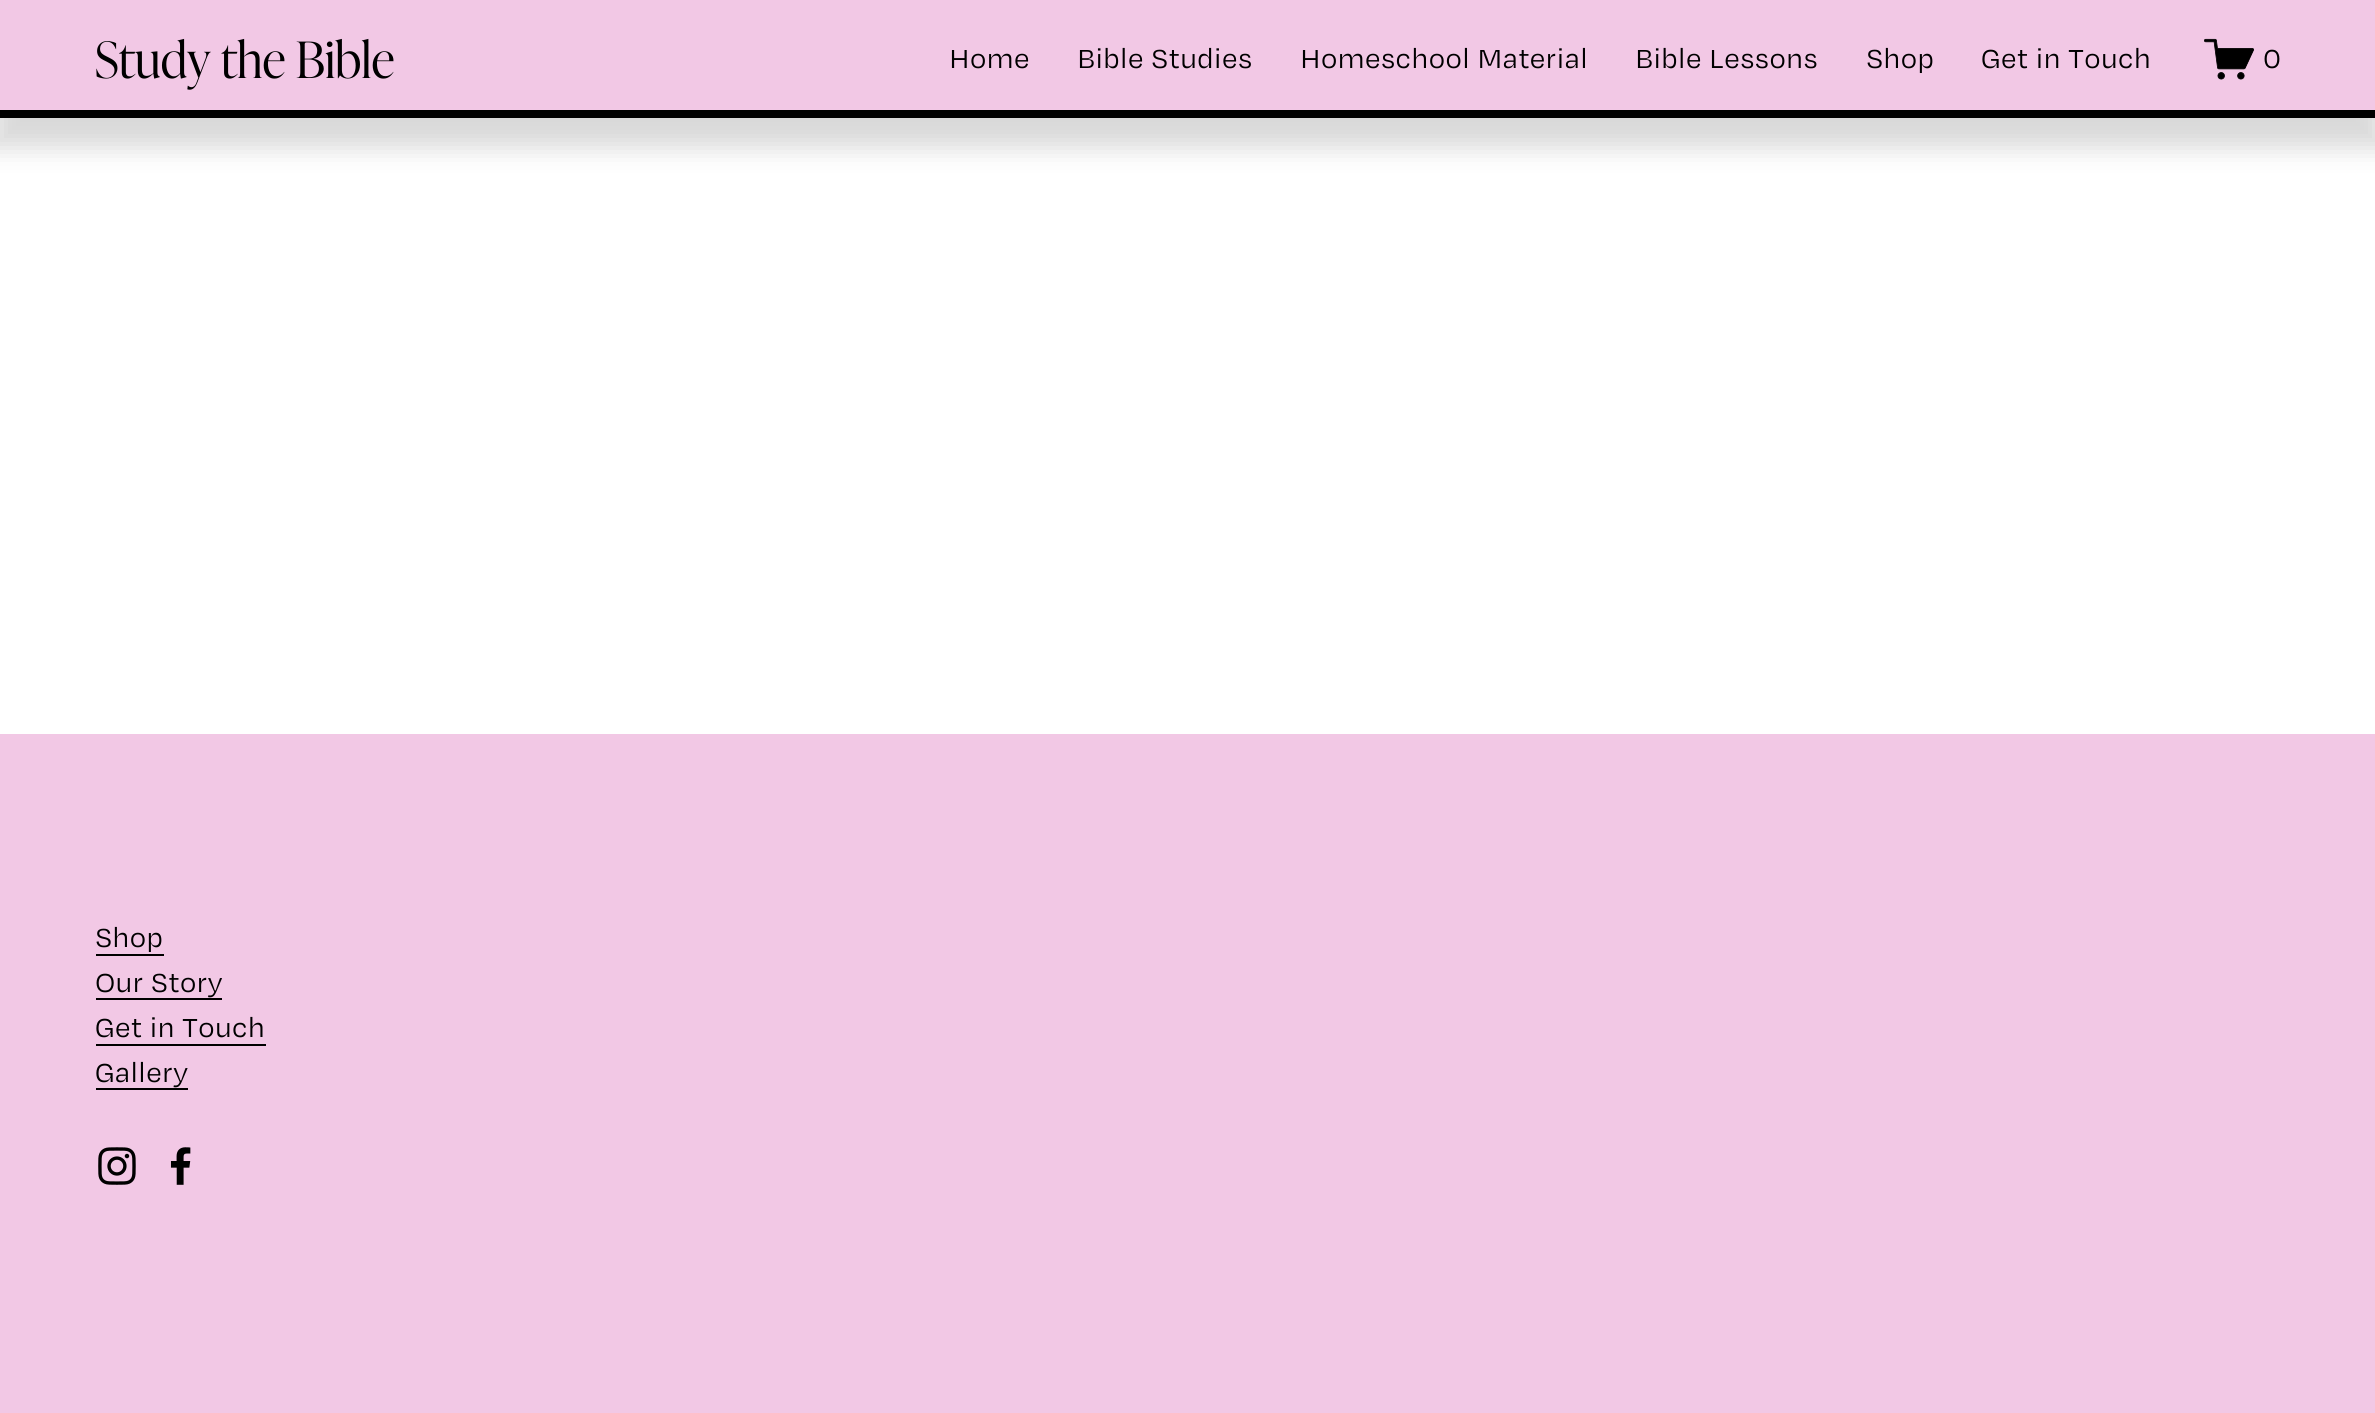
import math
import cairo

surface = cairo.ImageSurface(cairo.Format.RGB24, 2375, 1413)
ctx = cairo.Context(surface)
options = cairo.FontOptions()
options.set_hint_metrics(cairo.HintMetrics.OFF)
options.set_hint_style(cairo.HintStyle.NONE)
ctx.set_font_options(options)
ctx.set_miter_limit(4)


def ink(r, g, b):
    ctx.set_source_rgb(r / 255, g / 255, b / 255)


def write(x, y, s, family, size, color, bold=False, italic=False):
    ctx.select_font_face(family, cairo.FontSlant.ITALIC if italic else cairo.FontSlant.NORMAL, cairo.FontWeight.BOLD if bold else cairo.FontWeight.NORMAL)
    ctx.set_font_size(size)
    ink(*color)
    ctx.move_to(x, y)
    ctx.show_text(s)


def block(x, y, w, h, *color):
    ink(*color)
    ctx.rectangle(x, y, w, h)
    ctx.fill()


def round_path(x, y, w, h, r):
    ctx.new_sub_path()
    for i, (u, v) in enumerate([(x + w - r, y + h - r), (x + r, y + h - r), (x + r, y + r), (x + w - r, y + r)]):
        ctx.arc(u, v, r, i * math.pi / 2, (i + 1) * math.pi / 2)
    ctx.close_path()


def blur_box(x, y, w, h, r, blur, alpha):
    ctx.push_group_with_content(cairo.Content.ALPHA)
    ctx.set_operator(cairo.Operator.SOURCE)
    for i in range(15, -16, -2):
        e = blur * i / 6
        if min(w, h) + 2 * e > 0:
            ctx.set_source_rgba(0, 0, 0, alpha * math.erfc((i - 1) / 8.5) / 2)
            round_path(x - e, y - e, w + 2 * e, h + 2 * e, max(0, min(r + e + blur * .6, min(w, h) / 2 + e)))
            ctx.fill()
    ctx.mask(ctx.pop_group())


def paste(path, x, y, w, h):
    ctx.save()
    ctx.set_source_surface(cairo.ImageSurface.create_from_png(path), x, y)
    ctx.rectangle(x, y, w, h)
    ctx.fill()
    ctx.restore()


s1 = dict(family="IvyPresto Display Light", size=50, color=(0, 0, 0))
s2 = dict(family="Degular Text", size=30, color=(0, 0, 0))

ink(255, 255, 255)
ctx.paint()
block(0, 0, 2375, 110, 242, 200, 229)
ctx.save()
ctx.rectangle(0, 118, 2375, 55)
ctx.clip()
ink(217, 217, 217)
blur_box(-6, 18, 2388, 130, 0, 12, 1)
ctx.restore()
write(95, 78, "Study the Bible", **s1)
write(949, 68, "Home", **s2)
write(1077, 68, "Bible Studies", **s2)
write(1300, 68, "Homeschool Material", **s2)
write(1635, 68, "Bible Lessons", **s2)
write(1866, 68, "Shop", **s2)
write(1981, 68, "Get in Touch", **s2)
paste("pic1.png", 2204, 38, 50, 42)
write(2263, 68, "0", **s2)
block(0, 110, 2375, 8, 0, 0, 0)
block(0, 734, 2375, 679, 242, 200, 229)
write(95, 947, "Shop", **s2)
block(96, 954, 68, 2, 0, 0, 0)
write(95, 992, "Our Story", **s2)
block(96, 998, 126, 2, 0, 0, 0)
write(95, 1037, "Get in Touch", **s2)
block(96, 1044, 170, 2, 0, 0, 0)
write(95, 1082, "Gallery", **s2)
block(96, 1088, 92, 2, 0, 0, 0)
paste("pic2.png", 98, 1147, 38, 38)
paste("pic3.png", 170, 1147, 21, 38)
surface.write_to_png("screenshot.png")
